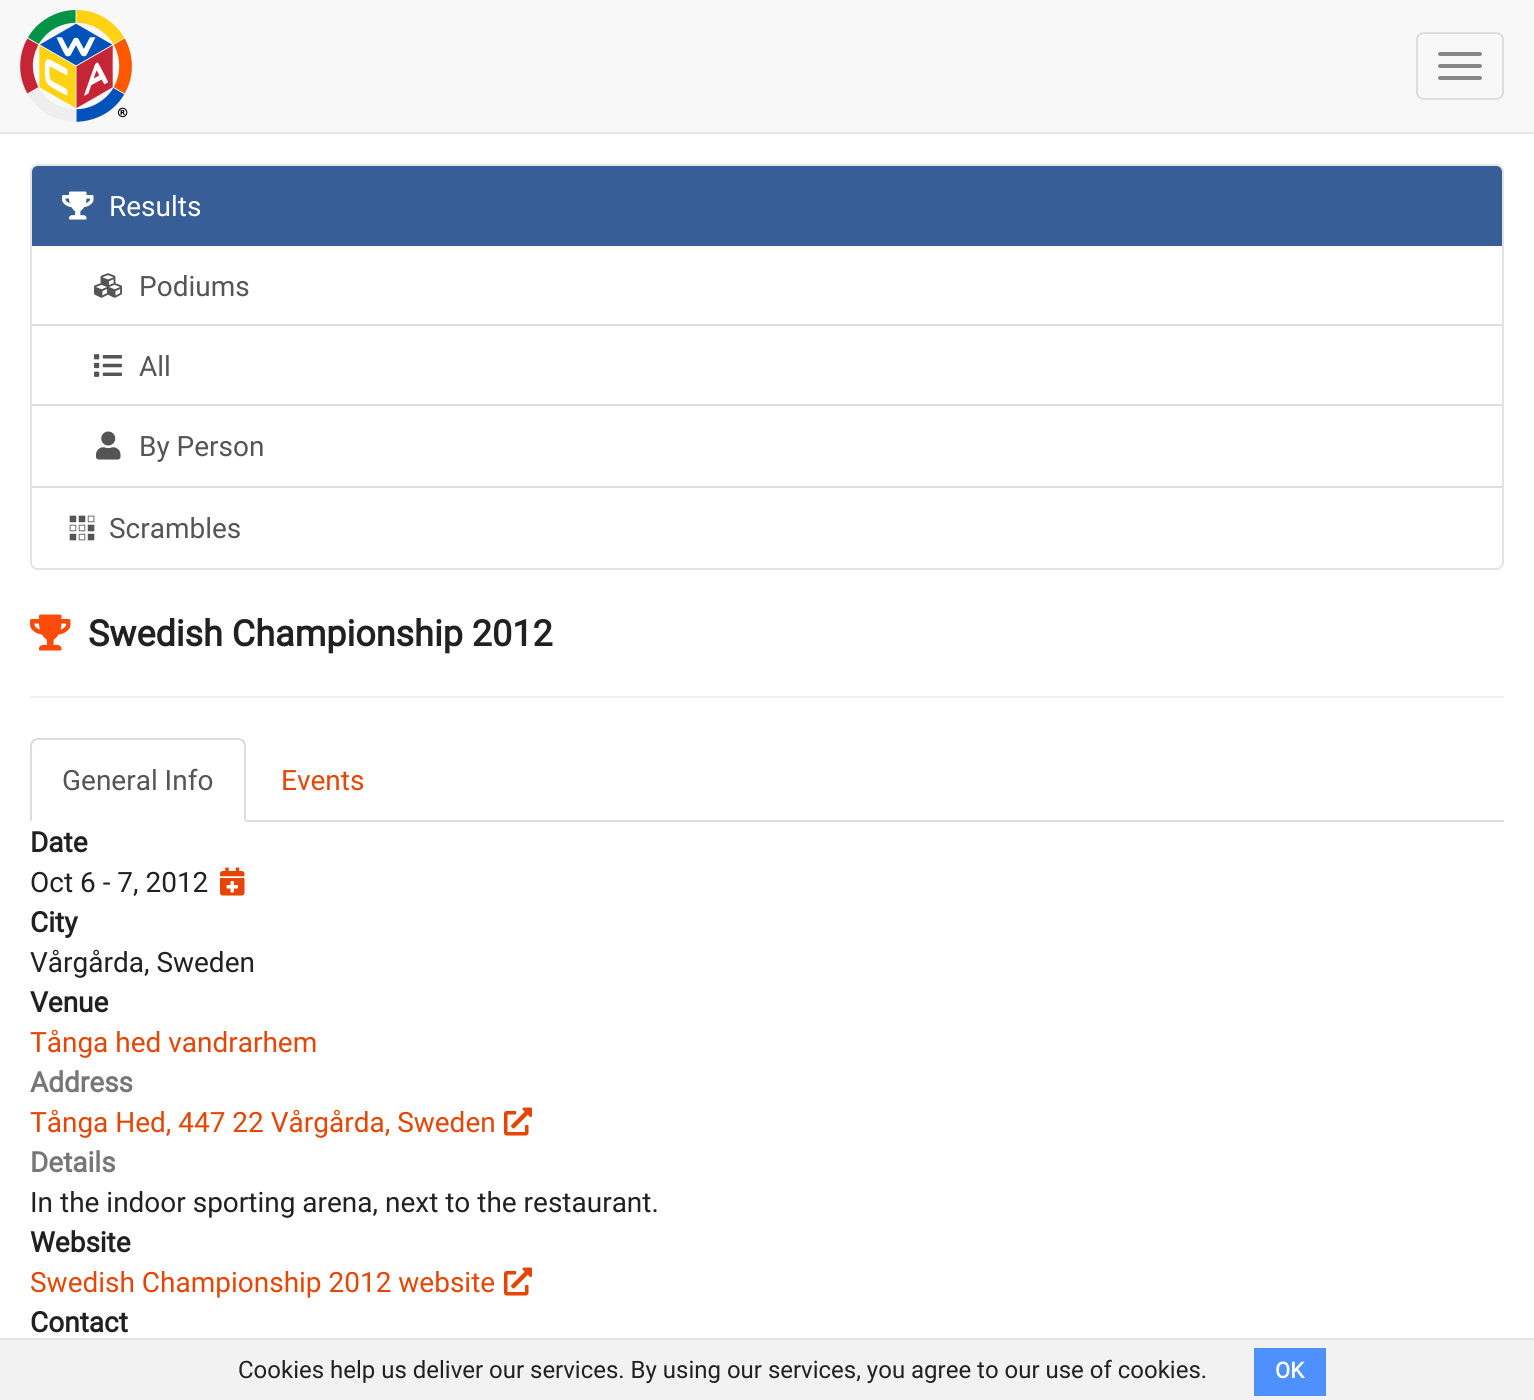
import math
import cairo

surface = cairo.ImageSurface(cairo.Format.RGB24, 1534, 1400)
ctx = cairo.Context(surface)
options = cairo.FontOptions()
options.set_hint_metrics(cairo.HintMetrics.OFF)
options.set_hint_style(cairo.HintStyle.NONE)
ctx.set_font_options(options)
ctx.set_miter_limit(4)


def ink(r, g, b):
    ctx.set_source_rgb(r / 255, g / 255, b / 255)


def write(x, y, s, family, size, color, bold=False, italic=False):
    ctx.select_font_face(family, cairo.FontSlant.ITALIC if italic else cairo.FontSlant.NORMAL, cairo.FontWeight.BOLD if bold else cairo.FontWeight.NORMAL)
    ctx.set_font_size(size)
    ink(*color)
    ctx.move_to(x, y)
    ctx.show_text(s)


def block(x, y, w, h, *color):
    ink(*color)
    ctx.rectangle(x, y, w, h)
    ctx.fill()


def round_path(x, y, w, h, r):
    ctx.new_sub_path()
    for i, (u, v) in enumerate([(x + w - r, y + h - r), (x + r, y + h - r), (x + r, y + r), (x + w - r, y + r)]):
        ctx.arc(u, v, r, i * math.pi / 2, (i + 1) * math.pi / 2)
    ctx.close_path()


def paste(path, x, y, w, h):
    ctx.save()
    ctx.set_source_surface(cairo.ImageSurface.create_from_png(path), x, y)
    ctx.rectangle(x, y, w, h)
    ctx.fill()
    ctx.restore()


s1 = dict(family="Roboto", size=28, color=(255, 255, 255))
s2 = dict(family="Roboto", size=28, color=(85, 85, 85))
s3 = dict(family="Roboto", size=36, color=(33, 33, 33), bold=True)
s4 = dict(family="Roboto", size=28, color=(230, 69, 3))
s5 = dict(family="Roboto", size=28, color=(33, 33, 33), bold=True)
s6 = dict(family="Roboto", size=28, color=(33, 33, 33))
s7 = dict(family="Roboto", size=28, color=(119, 119, 119), bold=True)
s8 = dict(family="Roboto", size=24, color=(33, 33, 33))
s9 = dict(family="Roboto", size=22, color=(255, 255, 255), bold=True)

ink(255, 255, 255)
ctx.paint()
block(0, 0, 1534, 132, 248, 248, 248)
block(0, 132, 1534, 2, 231, 231, 231)
paste("pic1.png", 20, 10, 112, 112)
round_path(1417, 33, 86, 66, 7)
ink(221, 221, 221)
ctx.stroke()
ink(136, 136, 136)
round_path(1438, 52, 44, 4, 2)
ctx.fill()
round_path(1438, 64, 44, 4, 2)
ctx.fill()
round_path(1438, 76, 44, 4, 2)
ctx.fill()
round_path(31, 165, 1472, 404, 7)
ink(227, 227, 227)
ctx.stroke()
ink(55, 94, 151)
ctx.new_path()
ctx.move_to(38, 166)
ctx.line_to(1496, 166)
ctx.curve_to(1499.5, 166, 1502, 168.5, 1502, 172)
ctx.line_to(1502, 246)
ctx.line_to(32, 246)
ctx.line_to(32, 172)
ctx.curve_to(32, 168.5, 34.5, 166, 38, 166)
ctx.close_path()
ctx.fill()
paste("pic2.png", 62, 191, 32, 29)
write(109, 216, "Results", **s1)
paste("pic3.png", 94, 273, 28, 25)
write(139, 296, "Podiums", **s2)
block(32, 324, 1470, 2, 221, 221, 221)
paste("pic4.png", 94, 354, 28, 23)
write(139, 376, "All", **s2)
block(32, 404, 1470, 2, 221, 221, 221)
paste("pic5.png", 96, 431, 25, 29)
write(139, 456, "By Person", **s2)
ink(255, 255, 255)
ctx.new_path()
ctx.move_to(32, 488)
ctx.line_to(1502, 488)
ctx.line_to(1502, 562)
ctx.curve_to(1502, 565.5, 1499.5, 568, 1496, 568)
ctx.line_to(38, 568)
ctx.curve_to(34.5, 568, 32, 565.5, 32, 562)
ctx.close_path()
ctx.fill()
block(32, 486, 1470, 2, 221, 221, 221)
paste("pic6.png", 69, 515, 26, 26)
write(109, 538, "Scrambles", **s2)
paste("pic7.png", 30, 614, 41, 37)
write(88, 646, "Swedish Championship 2012", **s3)
block(30, 696, 1474, 2, 238, 238, 238)
block(246, 820, 1258, 2, 221, 221, 221)
ctx.new_path()
ctx.move_to(38, 738)
ctx.curve_to(36, 738, 34, 739, 32, 740)
ctx.line_to(34, 742)
ctx.curve_to(35, 741, 36, 740, 38, 740)
ctx.line_to(238, 740)
ctx.curve_to(240, 740, 241, 741, 242, 742)
ctx.line_to(244, 740)
ctx.curve_to(242, 739, 240, 738, 238, 738)
ctx.close_path()
ctx.fill()
ctx.new_path()
ctx.move_to(246, 822)
ctx.line_to(246, 746)
ctx.curve_to(246, 744, 245, 742, 244, 740)
ctx.line_to(242, 742)
ctx.line_to(244, 745)
ctx.line_to(244, 820)
ctx.close_path()
ctx.fill()
ctx.new_path()
ctx.move_to(30, 822)
ctx.line_to(32, 820)
ctx.line_to(32, 745)
ctx.line_to(34, 742)
ctx.line_to(32, 740)
ctx.curve_to(31, 742, 30, 744, 30, 746)
ctx.close_path()
ctx.fill()
write(62, 790, "General Info", **s2)
write(281, 790, "Events", **s4)
write(30, 852, "Date", **s5)
write(30, 892, "Oct 6 - 7, 2012", **s6)
paste("pic8.png", 220, 867, 25, 29)
write(30, 932, "City", **s5)
write(30, 972, "Vårgårda, Sweden", **s6)
write(30, 1012, "Venue", **s5)
write(30, 1052, "Tånga hed vandrarhem", **s4)
write(30, 1092, "Address", **s7)
write(30, 1132, "Tånga Hed, 447 22 Vårgårda, Sweden", **s4)
paste("pic9.png", 504, 1107, 28, 29)
write(30, 1172, "Details", **s7)
write(30, 1212, "In the indoor sporting arena, next to the restaurant.", **s6)
write(30, 1252, "Website", **s5)
write(30, 1292, "Swedish Championship 2012 website", **s4)
paste("pic9.png", 504, 1267, 28, 29)
write(30, 1332, "Contact", **s5)
block(0, 1340, 1534, 60, 242, 242, 242)
block(0, 1338, 1534, 2, 228, 228, 228)
write(238, 1378, "Cookies help us deliver our services. By using our services, you agree to our use of cookies.", **s8)
block(1254, 1348, 72, 48, 77, 144, 254)
write(1275, 1378, "OK", **s9)
surface.write_to_png("screenshot.png")
